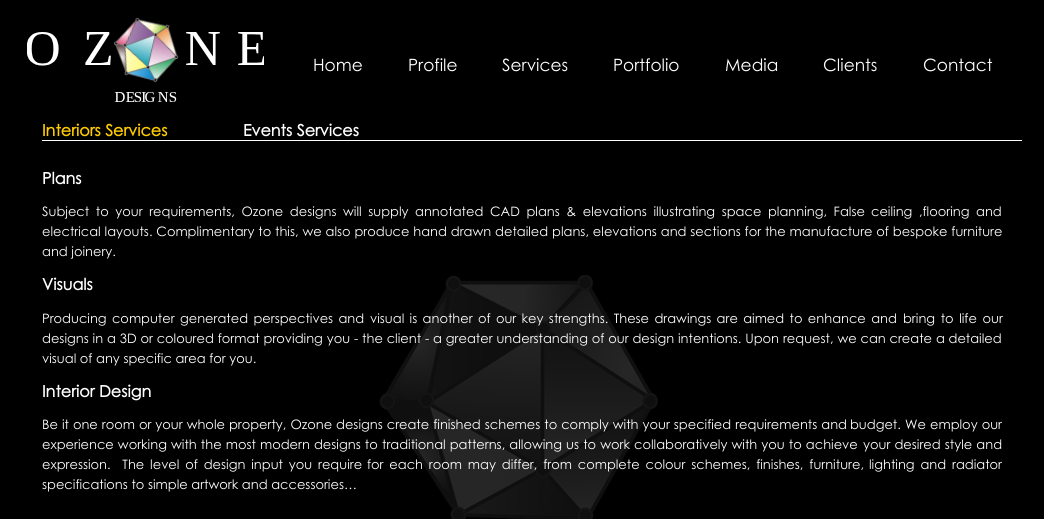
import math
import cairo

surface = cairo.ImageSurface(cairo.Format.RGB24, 1044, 519)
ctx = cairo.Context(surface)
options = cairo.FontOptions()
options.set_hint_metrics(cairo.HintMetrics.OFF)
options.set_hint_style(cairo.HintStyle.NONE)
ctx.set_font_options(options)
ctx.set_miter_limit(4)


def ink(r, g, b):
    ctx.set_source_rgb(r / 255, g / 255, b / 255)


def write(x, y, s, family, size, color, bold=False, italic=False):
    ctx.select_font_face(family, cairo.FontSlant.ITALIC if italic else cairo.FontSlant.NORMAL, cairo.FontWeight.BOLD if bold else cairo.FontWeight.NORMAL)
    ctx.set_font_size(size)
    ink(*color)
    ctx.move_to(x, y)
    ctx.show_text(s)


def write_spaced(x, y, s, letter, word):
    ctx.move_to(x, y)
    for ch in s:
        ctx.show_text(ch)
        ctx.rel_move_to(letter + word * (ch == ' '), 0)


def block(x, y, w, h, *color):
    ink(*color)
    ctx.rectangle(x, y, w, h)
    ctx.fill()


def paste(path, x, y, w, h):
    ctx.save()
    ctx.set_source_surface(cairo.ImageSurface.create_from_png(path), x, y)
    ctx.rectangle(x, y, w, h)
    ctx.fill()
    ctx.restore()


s1 = dict(family="Century Gothic", size=17, color=(255, 255, 255))
s2 = dict(family="Century Gothic", size=16, color=(255, 204, 0), bold=True)
s3 = dict(family="Century Gothic", size=16, color=(255, 255, 255), bold=True)
s4 = dict(family="Century Gothic", size=13, color=(255, 255, 255))

ink(0, 0, 0)
ctx.paint()
paste("pic1.png", 27, 17, 237, 85)
write(313, 71, "Home", **s1)
write(408, 71, "Profile", **s1)
write(502, 71, "Services", **s1)
write(613, 71, "Portfolio", **s1)
write(725, 71, "Media", **s1)
write(823, 71, "Clients", **s1)
write(923, 71, "Contact", **s1)
paste("pic2.png", 379, 275, 279, 244)
block(42, 140, 980, 1, 255, 255, 255)
write(42, 136, "Interiors Services", **s2)
write(243, 136, "Events Services", **s3)
write(42, 184, "Plans", **s3)
ctx.select_font_face("Century Gothic")
ctx.set_font_size(13)
write_spaced(42, 216, "Subject to your requirements, Ozone designs", 0, 3)
write_spaced(343, 216, "will supply annotated CAD plans & elevations illustrating space planning, False", 0, 3)
write_spaced(871, 216, "ceiling ,flooring and", 0, 3)
write_spaced(42, 236, "electrical layouts. Complimentary to this, we also produce hand drawn detailed plans, elevations and sections for the manufacture of bespoke furniture", 0, 0.25)
write(42, 256, "and joinery.", **s4)
write(42, 290, "Visuals", **s3)
ctx.select_font_face("Century Gothic")
ctx.set_font_size(13)
write_spaced(42, 323, "Producing computer generated perspectives and", 0, 1.75)
write_spaced(370, 323, "visual is another of our key strengths. These drawings are aimed to enhance and", 0, 1.75)
write_spaced(903, 323, "bring to life our", 0, 2)
write_spaced(42, 343, "designs in a 3D or coloured format providing you - the client - a greater understanding of our design intentions. Upon request, we can create", 0, 0.25)
write(936, 343, "a detailed", **s4)
write(42, 363, "visual of any specific area for you.", **s4)
write(42, 397, "Interior Design", **s3)
ctx.select_font_face("Century Gothic")
ctx.set_font_size(13)
write_spaced(42, 429, "Be it one room or your whole property, Ozone", 0, 0.4)
write_spaced(336, 429, "designs create finished schemes to comply with your specified requirements and", 0, 0.4)
write_spaced(850, 429, "budget. We employ our", 0, 0.5)
write_spaced(42, 449, "experience working with the most modern designs to", 0, 0.5)
write_spaced(382, 449, "traditional patterns, allowing us to work collaboratively with you to achieve", 0, 0.5)
write_spaced(863, 449, "your desired style and", 0, 0.5)
write_spaced(42, 469, "expression.  The level of design input you require", 0, 2.25)
write_spaced(367, 469, "for each room may differ, from complete colour schemes, finishes, furniture,", 0, 2.25)
write_spaced(869, 469, "lighting and radiator", 0, 2.25)
write(42, 489, "specifications to simple artwork and accessories…", **s4)
surface.write_to_png("screenshot.png")
